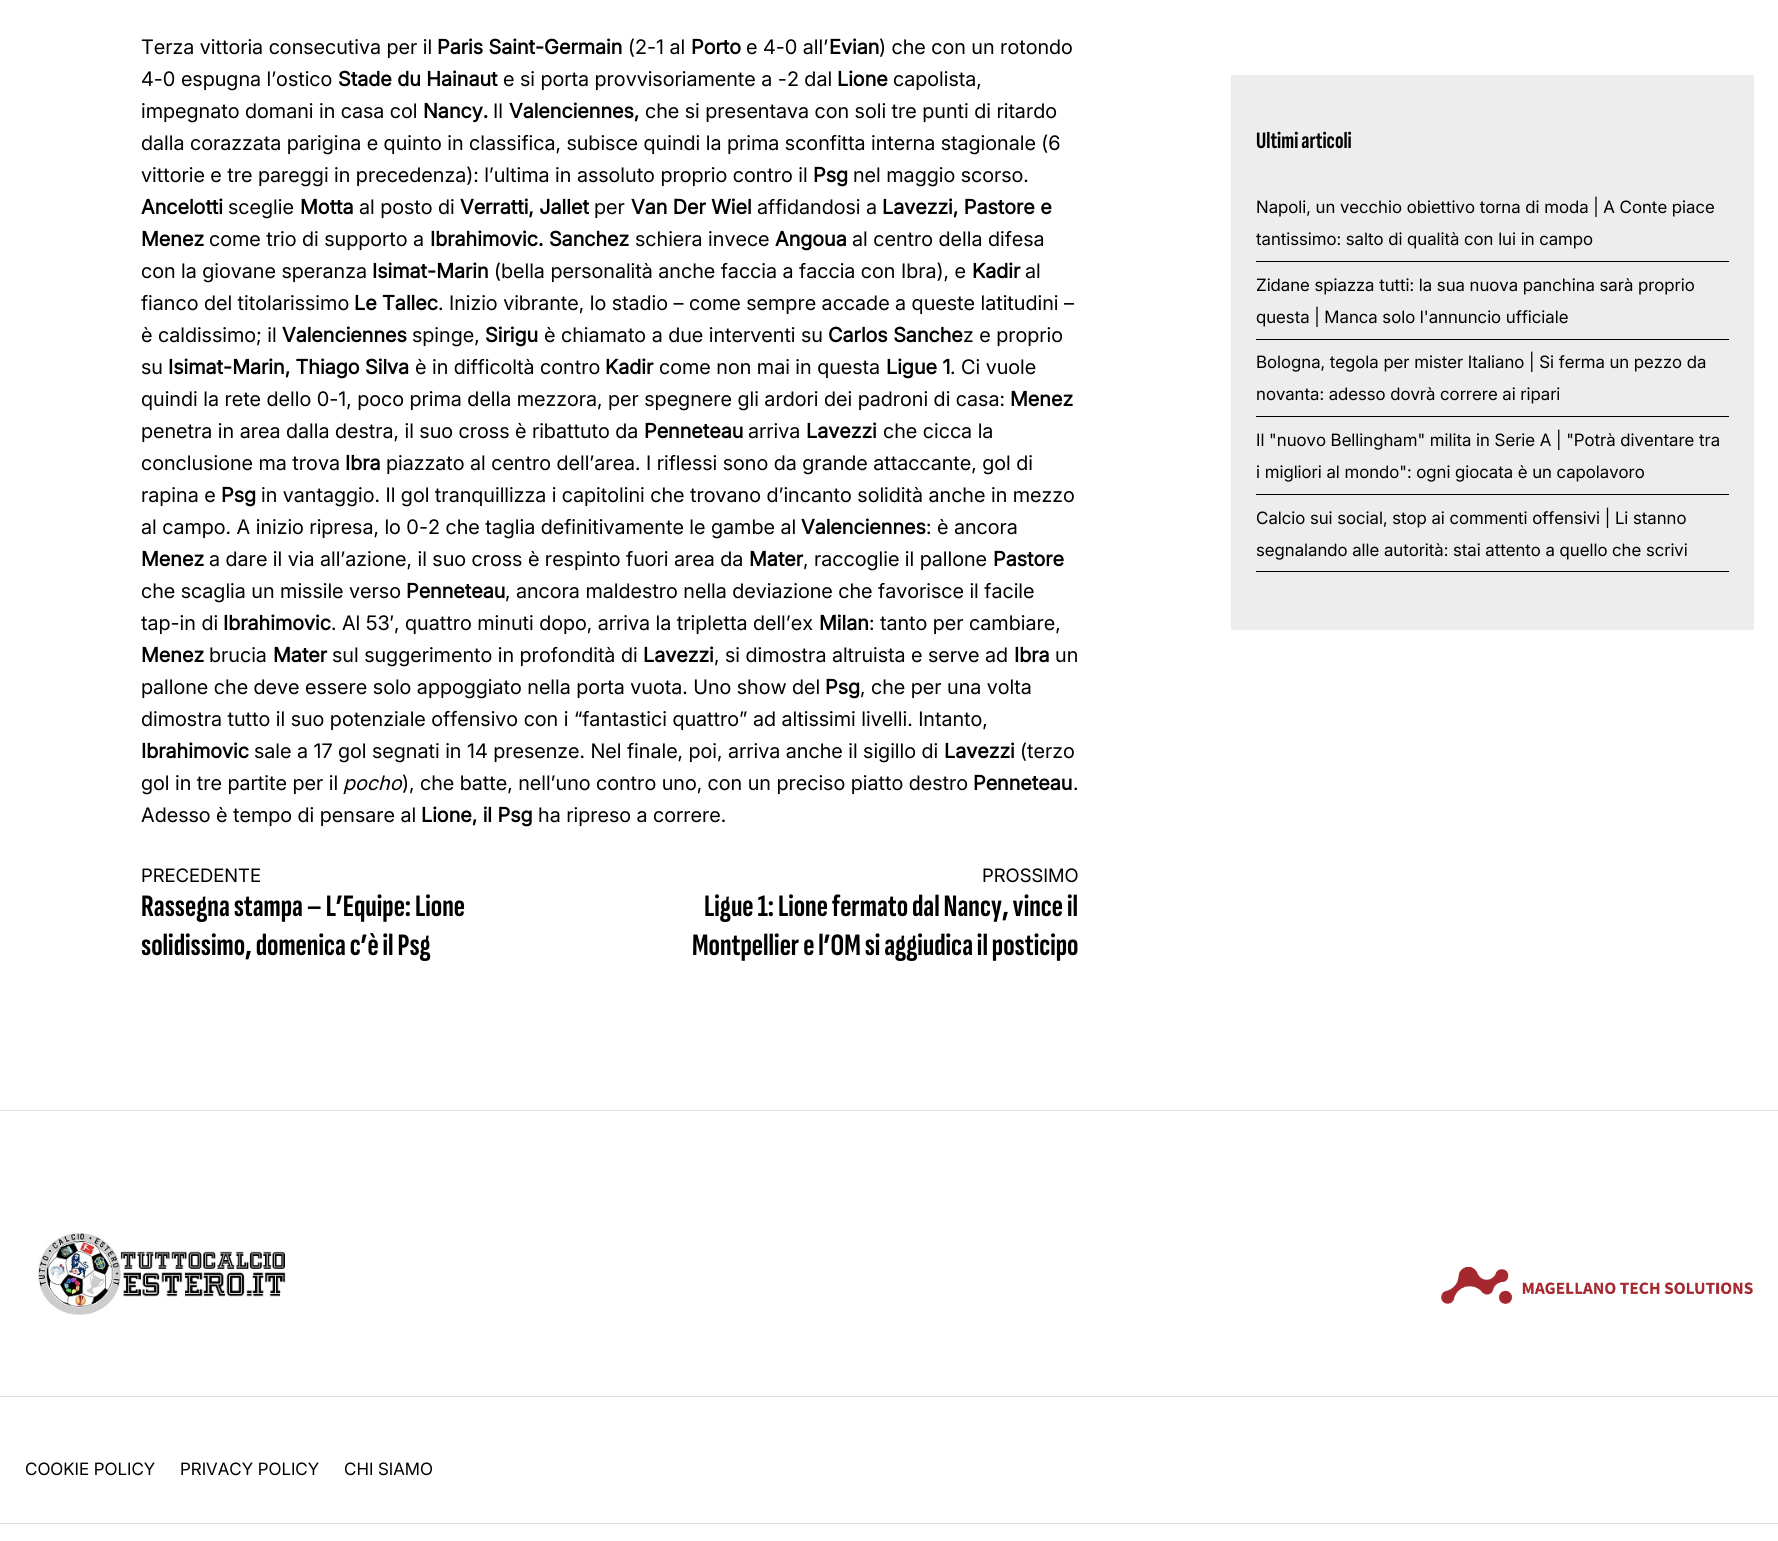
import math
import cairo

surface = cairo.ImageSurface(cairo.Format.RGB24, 1778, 1541)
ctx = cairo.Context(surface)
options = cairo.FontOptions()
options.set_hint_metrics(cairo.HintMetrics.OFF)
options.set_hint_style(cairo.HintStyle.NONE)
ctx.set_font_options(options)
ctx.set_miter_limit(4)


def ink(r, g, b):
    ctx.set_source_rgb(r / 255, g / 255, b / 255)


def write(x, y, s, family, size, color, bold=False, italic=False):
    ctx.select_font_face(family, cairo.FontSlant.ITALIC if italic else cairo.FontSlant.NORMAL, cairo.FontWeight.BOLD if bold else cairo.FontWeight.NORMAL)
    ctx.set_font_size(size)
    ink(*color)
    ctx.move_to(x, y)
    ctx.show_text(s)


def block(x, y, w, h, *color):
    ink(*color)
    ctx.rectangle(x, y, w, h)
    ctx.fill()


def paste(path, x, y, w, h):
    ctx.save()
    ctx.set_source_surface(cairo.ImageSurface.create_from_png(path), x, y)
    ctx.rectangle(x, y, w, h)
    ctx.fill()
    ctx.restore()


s1 = dict(family="Inter", size=20, color=(0, 0, 0))
s2 = dict(family="Inter", size=20, color=(0, 0, 0), bold=True)
s3 = dict(family="Inter", size=20, color=(0, 0, 0), italic=True)
s4 = dict(family="Inter", size=18.5, color=(0, 0, 0))
s5 = dict(family="Sofia Sans Extra Condensed", size=31.25, color=(0, 0, 0), bold=True)
s6 = dict(family="Sofia Sans Extra Condensed", size=23.5, color=(0, 0, 0), bold=True)
s7 = dict(family="Inter", size=17, color=(0, 0, 0))

ink(255, 255, 255)
ctx.paint()
write(141, 54, "Terza vittoria consecutiva per il", **s1)
write(437, 54, "Paris Saint-Germain", **s2)
write(628, 54, "(2-1 al", **s1)
write(691, 54, "Porto", **s2)
write(746, 54, "e 4-0 all’", **s1)
write(829, 54, "Evian", **s2)
write(879, 54, ") che con un rotondo", **s1)
write(141, 86, "4-0 espugna l’ostico", **s1)
write(338, 86, "Stade du Hainaut", **s2)
write(503, 86, "e si porta provvisoriamente a -2 dal", **s1)
write(837, 86, "Lione", **s2)
write(893, 86, "capolista,", **s1)
write(141, 118, "impegnato domani in casa col", **s1)
write(423, 118, "Nancy.", **s2)
write(493, 118, "Il", **s1)
write(509, 118, "Valenciennes,", **s2)
write(645, 118, "che si presentava con soli tre punti di ritardo", **s1)
write(141, 150, "dalla corazzata parigina e quinto in classifica, subisce quindi la prima sconfitta interna stagionale (6", **s1)
write(141, 182, "vittorie e tre pareggi in precedenza): l’ultima in assoluto proprio contro il", **s1)
write(813, 182, "Psg", **s2)
write(853, 182, "nel maggio scorso.", **s1)
write(141, 214, "Ancelotti", **s2)
write(228, 214, "sceglie", **s1)
write(300, 214, "Motta", **s2)
write(359, 214, "al posto di", **s1)
write(460, 214, "Verratti, Jallet", **s2)
write(594, 214, "per", **s1)
write(631, 214, "Van Der Wiel", **s2)
write(757, 214, "affidandosi a", **s1)
write(882, 214, "Lavezzi, Pastore e", **s2)
write(141, 246, "Menez", **s2)
write(209, 246, "come trio di supporto a", **s1)
write(430, 246, "Ibrahimovic. Sanchez", **s2)
write(635, 246, "schiera invece", **s1)
write(775, 246, "Angoua", **s2)
write(852, 246, "al centro della difesa", **s1)
write(141, 278, "con la giovane speranza", **s1)
write(372, 278, "Isimat-Marin", **s2)
write(494, 278, "(bella personalità anche faccia a faccia con Ibra), e", **s1)
write(972, 278, "Kadir", **s2)
write(1025, 278, "al", **s1)
write(141, 310, "fianco del titolarissimo", **s1)
write(354, 310, "Le Tallec", **s2)
write(438, 310, ". Inizio vibrante, lo stadio – come sempre accade a queste latitudini –", **s1)
write(141, 342, "è caldissimo; il", **s1)
write(282, 342, "Valenciennes", **s2)
write(412, 342, "spinge,", **s1)
write(485, 342, "Sirigu", **s2)
write(544, 342, "è chiamato a due interventi su", **s1)
write(828, 342, "Carlos Sanche", **s2)
write(963, 342, "z e proprio", **s1)
write(141, 374, "su", **s1)
write(168, 374, "Isimat-Marin, Thiago Silva", **s2)
write(415, 374, "è in difficoltà contro", **s1)
write(605, 374, "Kadir", **s2)
write(659, 374, "come non mai in questa", **s1)
write(886, 374, "Ligue 1", **s2)
write(950, 374, ". Ci vuole", **s1)
write(141, 406, "quindi la rete dello 0-1, poco prima della mezzora, per spegnere gli ardori dei padroni di casa:", **s1)
write(1010, 406, "Menez", **s2)
write(141, 438, "penetra in area dalla destra, il suo cross è ribattuto da", **s1)
write(644, 438, "Penneteau", **s2)
write(748, 438, "arriva", **s1)
write(806, 438, "Lavezzi", **s2)
write(883, 438, "che cicca la", **s1)
write(141, 470, "conclusione ma trova", **s1)
write(345, 470, "Ibra", **s2)
write(386, 470, "piazzato al centro dell’area. I riflessi sono da grande attaccante, gol di", **s1)
write(141, 502, "rapina e", **s1)
write(221, 502, "Psg", **s2)
write(261, 502, "in vantaggio. Il gol tranquillizza i capitolini che trovano d’incanto solidità anche in mezzo", **s1)
write(141, 534, "al campo. A inizio ripresa, lo 0-2 che taglia definitivamente le gambe al", **s1)
write(801, 534, "Valenciennes", **s2)
write(926, 534, ": è ancora", **s1)
write(141, 566, "Menez", **s2)
write(209, 566, "a dare il via all’azione, il suo cross è respinto fuori area da", **s1)
write(749, 566, "Mater", **s2)
write(803, 566, ", raccoglie il pallone", **s1)
write(993, 566, "Pastore", **s2)
write(141, 598, "che scaglia un missile verso", **s1)
write(406, 598, "Penneteau", **s2)
write(505, 598, ", ancora maldestro nella deviazione che favorisce il facile", **s1)
write(141, 630, "tap-in di", **s1)
write(223, 630, "Ibrahimovic", **s2)
write(331, 630, ". Al 53′, quattro minuti dopo, arriva la tripletta dell’ex", **s1)
write(819, 630, "Milan", **s2)
write(869, 630, ": tanto per cambiare,", **s1)
write(141, 662, "Menez", **s2)
write(209, 662, "brucia", **s1)
write(273, 662, "Mater", **s2)
write(332, 662, "sul suggerimento in profondità di", **s1)
write(643, 662, "Lavezzi", **s2)
write(714, 662, ", si dimostra altruista e serve ad", **s1)
write(1014, 662, "Ibra", **s2)
write(1055, 662, "un", **s1)
write(141, 694, "pallone che deve essere solo appoggiato nella porta vuota. Uno show del", **s1)
write(825, 694, "Psg", **s2)
write(860, 694, ", che per una volta", **s1)
write(141, 726, "dimostra tutto il suo potenziale offensivo con i “fantastici quattro” ad altissimi livelli. Intanto,", **s1)
write(141, 758, "Ibrahimovic", **s2)
write(254, 758, "sale a 17 gol segnati in 14 presenze. Nel finale, poi, arriva anche il sigillo di", **s1)
write(944, 758, "Lavezzi", **s2)
write(1020, 758, "(terzo", **s1)
write(141, 790, "gol in tre partite per il", **s1)
write(343, 790, "pocho", **s3)
write(402, 790, "), che batte, nell’uno contro uno, con un preciso piatto destro", **s1)
write(973, 790, "Penneteau", **s2)
write(1073, 790, ".", **s1)
write(141, 822, "Adesso è tempo di pensare al", **s1)
write(421, 822, "Lione, il Psg", **s2)
write(538, 822, "ha ripreso a correre.", **s1)
write(141, 882, "PRECEDENTE", **s4)
write(141, 916, "Rassegna stampa – L’Equipe: Lione", **s5)
write(141, 955, "solidissimo, domenica c’è il Psg", **s5)
write(982, 882, "PROSSIMO", **s4)
write(704, 916, "Ligue 1: Lione fermato dal Nancy, vince il", **s5)
write(692, 955, "Montpellier e l’OM si aggiudica il posticipo", **s5)
block(1231, 75, 523, 555, 237, 237, 237)
write(1256, 148, "Ultimi articoli", **s6)
block(1256, 261, 473, 1, 0, 0, 0)
write(1256, 213, "Napoli, un vecchio obiettivo torna di moda | A Conte piace", **s7)
write(1256, 245, "tantissimo: salto di qualità con lui in campo", **s7)
block(1256, 339, 473, 1, 0, 0, 0)
write(1256, 291, "Zidane spiazza tutti: la sua nuova panchina sarà proprio", **s7)
write(1256, 323, "questa | Manca solo l'annuncio ufficiale", **s7)
block(1256, 416, 473, 1, 0, 0, 0)
write(1256, 368, "Bologna, tegola per mister Italiano | Si ferma un pezzo da", **s7)
write(1256, 400, "novanta: adesso dovrà correre ai ripari", **s7)
block(1256, 494, 473, 1, 0, 0, 0)
write(1256, 446, "Il \"nuovo Bellingham\" milita in Serie A | \"Potrà diventare tra", **s7)
write(1256, 478, "i migliori al mondo\": ogni giocata è un capolavoro", **s7)
block(1256, 571, 473, 1, 0, 0, 0)
write(1256, 524, "Calcio sui social, stop ai commenti offensivi | Li stanno", **s7)
write(1256, 556, "segnalando alle autorità: stai attento a quello che scrivi", **s7)
block(0, 1110, 1778, 1, 224, 224, 224)
block(0, 1396, 1778, 1, 224, 224, 224)
paste("pic1.png", 38, 1233, 248, 82)
paste("pic2.png", 1441, 1266, 312, 38)
write(25, 1475, "COOKIE POLICY", **s7)
write(180, 1475, "PRIVACY POLICY", **s7)
write(344, 1475, "CHI SIAMO", **s7)
block(0, 1523, 1778, 1, 224, 224, 224)
surface.write_to_png("screenshot.png")
